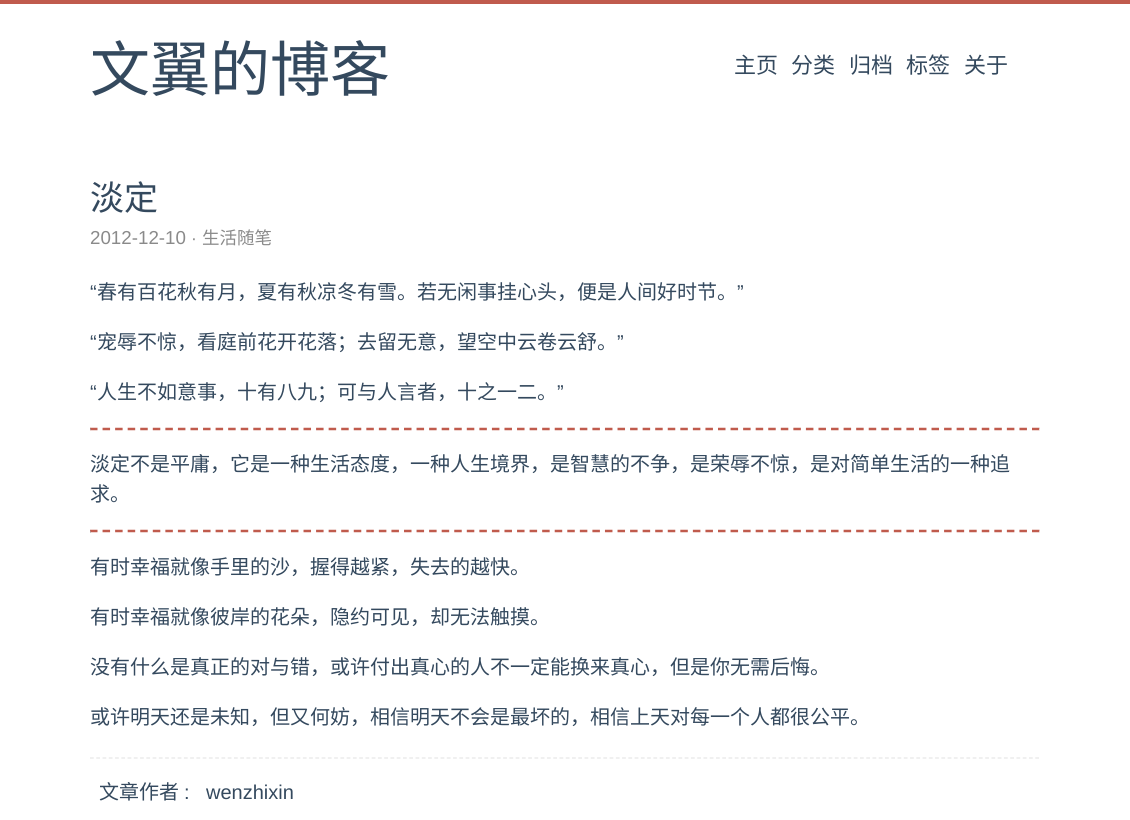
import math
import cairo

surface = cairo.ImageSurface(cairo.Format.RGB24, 1130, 820)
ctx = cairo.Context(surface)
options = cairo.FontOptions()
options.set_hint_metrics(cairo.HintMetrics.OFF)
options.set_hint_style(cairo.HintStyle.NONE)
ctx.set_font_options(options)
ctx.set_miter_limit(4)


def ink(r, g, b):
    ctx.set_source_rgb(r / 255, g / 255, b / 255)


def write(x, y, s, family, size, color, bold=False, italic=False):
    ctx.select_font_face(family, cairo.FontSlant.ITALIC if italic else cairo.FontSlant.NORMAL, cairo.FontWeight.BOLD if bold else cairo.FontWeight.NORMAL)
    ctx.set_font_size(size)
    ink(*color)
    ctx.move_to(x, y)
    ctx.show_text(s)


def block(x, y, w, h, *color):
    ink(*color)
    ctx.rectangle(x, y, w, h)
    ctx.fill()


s1 = dict(family="Noto Sans CJK SC", size=60, color=(52, 73, 94))
s2 = dict(family="Noto Sans CJK SC", size=22, color=(52, 73, 94))
s3 = dict(family="Noto Sans CJK SC", size=34, color=(52, 73, 94))
s4 = dict(family="Liberation Sans", size=18.75, color=(138, 138, 138))
s5 = dict(family="Liberation Sans", size=17.5, color=(138, 138, 138))
s6 = dict(family="Noto Sans CJK SC", size=17.5, color=(138, 138, 138))
s7 = dict(family="Liberation Sans", size=20, color=(52, 73, 94))
s8 = dict(family="Noto Sans CJK SC", size=20, color=(52, 73, 94))

ink(255, 255, 255)
ctx.paint()
block(0, 0, 1130, 4, 192, 91, 77)
write(90, 91, "文翼的博客", **s1)
write(734, 73, "主页", **s2)
write(791, 73, "分类", **s2)
write(849, 73, "归档", **s2)
write(906, 73, "标签", **s2)
write(964, 73, "关于", **s2)
write(90, 210, "淡定", **s3)
write(90, 244, "2012-12-10", **s4)
write(191, 244, "·", **s5)
write(202, 244, "生活随笔", **s6)
write(90, 299, "“", **s7)
write(97, 299, "春有百花秋有月，夏有秋凉冬有雪。若无闲事挂心头，便是人间好时节。", **s8)
write(737, 299, "”", **s7)
write(90, 349, "“", **s7)
write(97, 349, "宠辱不惊，看庭前花开花落；去留无意，望空中云卷云舒。", **s8)
write(617, 349, "”", **s7)
write(90, 399, "“", **s7)
write(97, 399, "人生不如意事，十有八九；可与人言者，十之一二。", **s8)
write(557, 399, "”", **s7)
ctx.new_path()
ctx.move_to(90, 429)
ctx.line_to(1040, 429)
ink(192, 91, 77)
ctx.set_line_width(2.5)
ctx.set_dash([7.5, 5.06])
ctx.stroke()
ink(238, 238, 238)
ctx.new_path()
ctx.move_to(1040, 427.5)
ctx.line_to(1040, 430)
ctx.line_to(1039, 430)
ctx.close_path()
ctx.fill()
ink(159, 159, 159)
ctx.new_path()
ctx.move_to(90, 430)
ctx.line_to(90, 427.5)
ctx.line_to(91, 430)
ctx.close_path()
ctx.fill()
write(90, 471, "淡定不是平庸，它是一种生活态度，一种人生境界，是智慧的不争，是荣辱不惊，是对简单生活的一种追", **s8)
write(90, 501, "求。", **s8)
ctx.new_path()
ctx.move_to(90, 531)
ctx.line_to(1040, 531)
ink(192, 91, 77)
ctx.stroke()
ink(238, 238, 238)
ctx.new_path()
ctx.move_to(1040, 530)
ctx.line_to(1040, 532.5)
ctx.line_to(1039, 532.5)
ctx.close_path()
ctx.fill()
ink(159, 159, 159)
ctx.new_path()
ctx.move_to(90, 532.5)
ctx.line_to(90, 530)
ctx.line_to(91, 532.5)
ctx.close_path()
ctx.fill()
write(90, 574, "有时幸福就像手里的沙，握得越紧，失去的越快。", **s8)
write(90, 624, "有时幸福就像彼岸的花朵，隐约可见，却无法触摸。", **s8)
write(90, 674, "没有什么是真正的对与错，或许付出真心的人不一定能换来真心，但是你无需后悔。", **s8)
write(90, 724, "或许明天还是未知，但又何妨，相信明天不会是最坏的，相信上天对每一个人都很公平。", **s8)
ctx.new_path()
ctx.move_to(90, 758)
ctx.line_to(1040, 758)
ink(230, 230, 230)
ctx.set_line_width(1.2)
ctx.set_dash([3.75, 2.51])
ctx.stroke()
write(99, 799, "文章作者", **s8)
write(184, 799, ":", **s7)
write(206, 799, "wenzhixin", **s7)
surface.write_to_png("screenshot.png")
